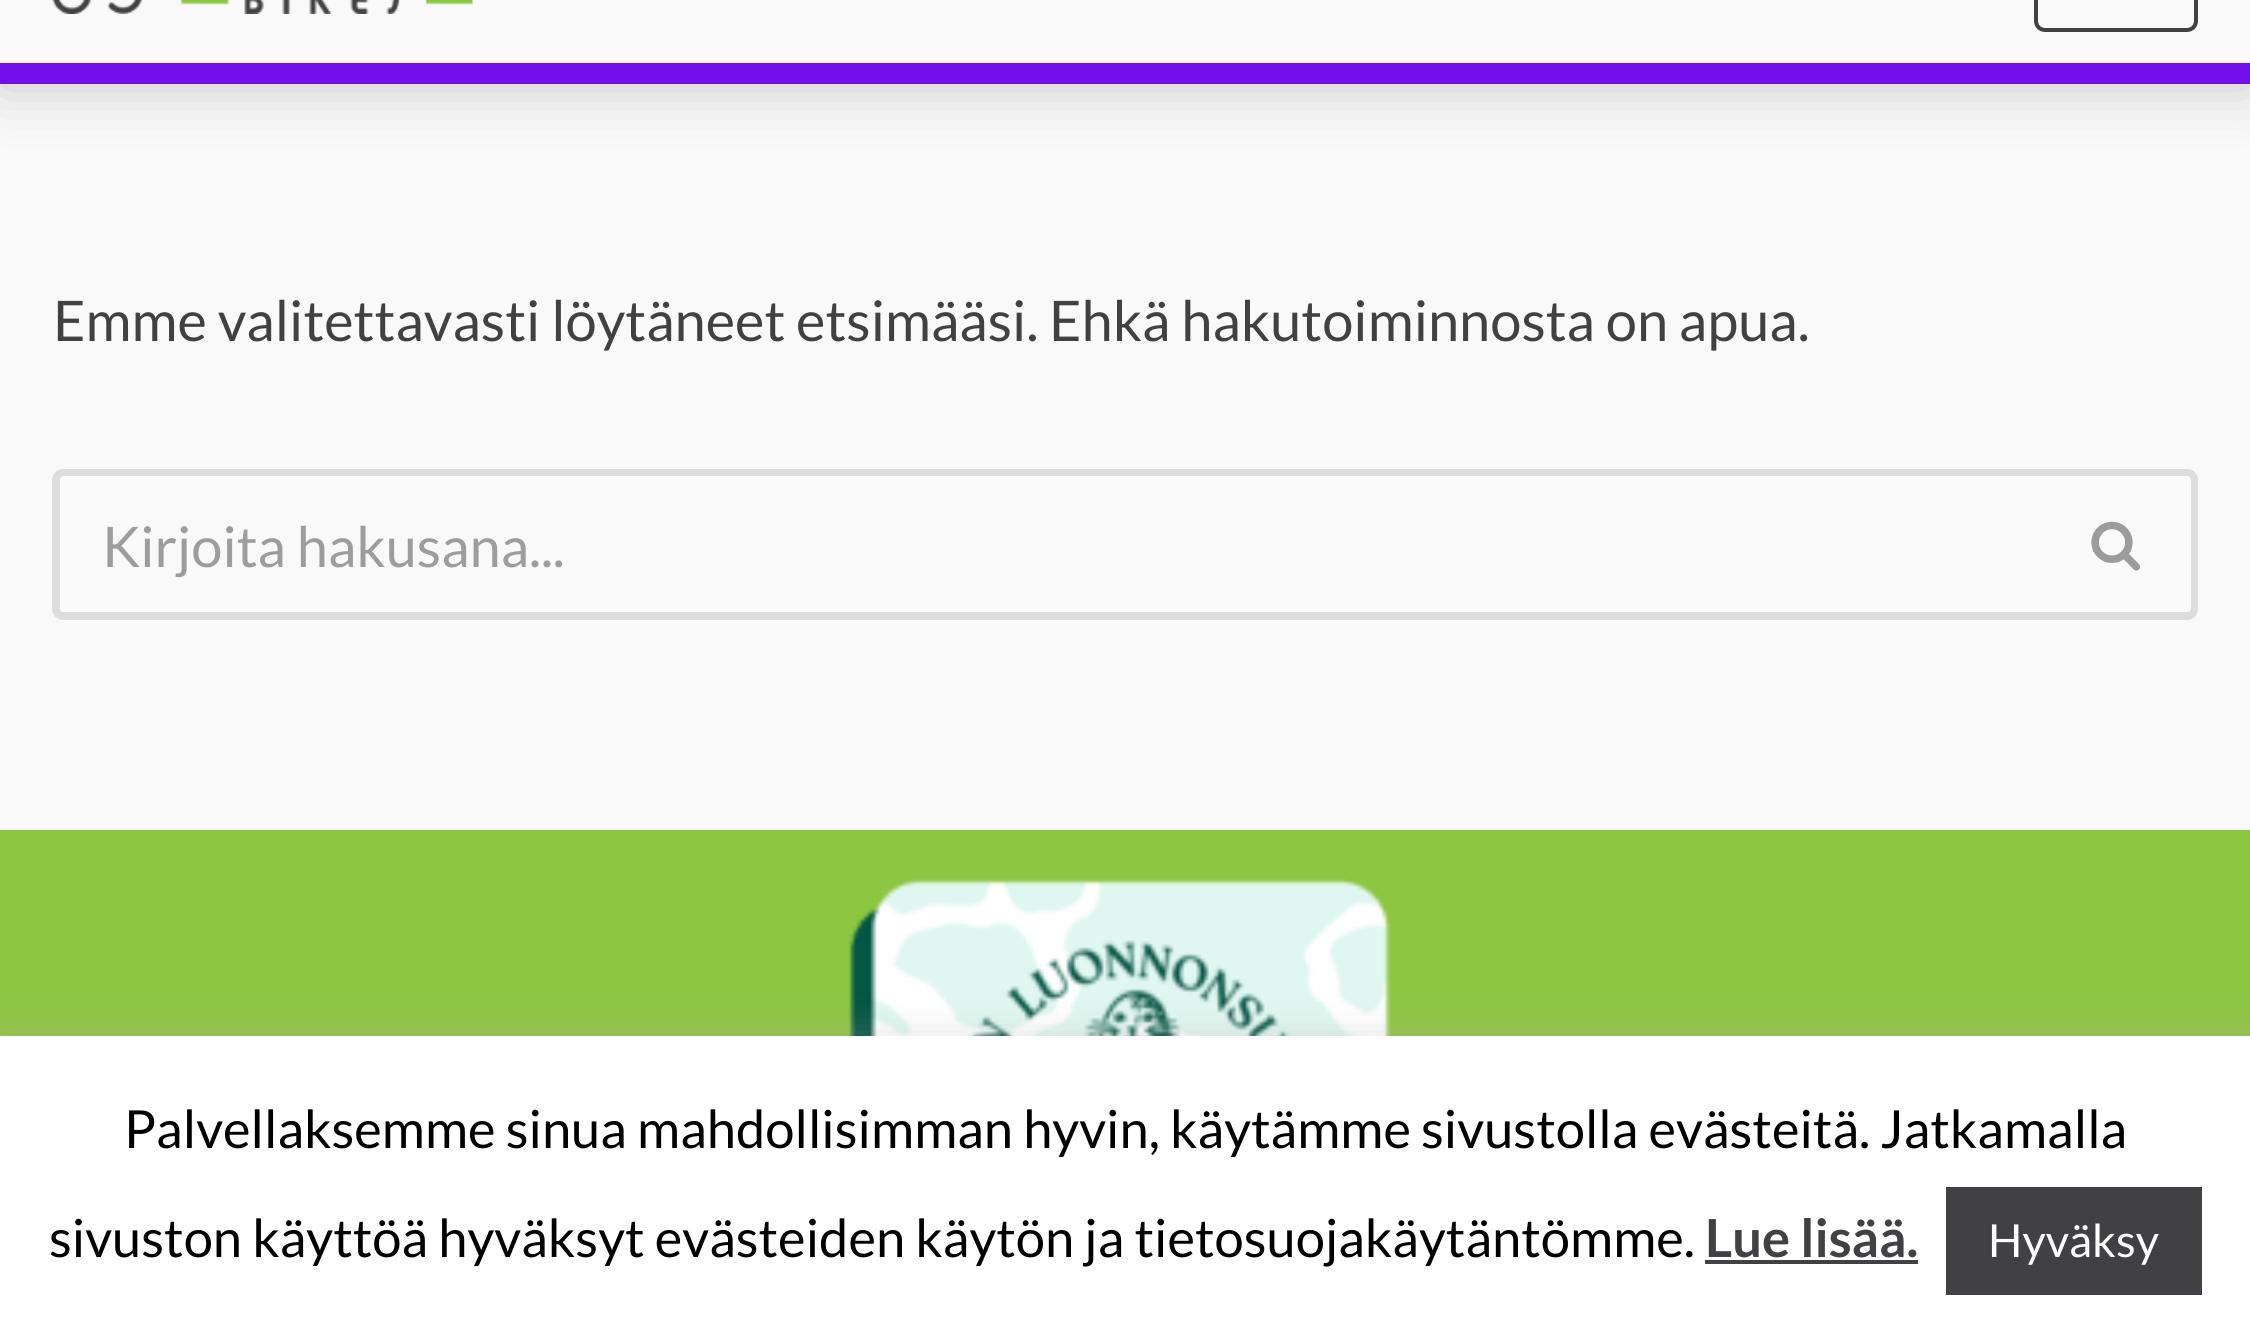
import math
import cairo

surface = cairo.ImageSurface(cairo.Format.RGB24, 2250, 1336)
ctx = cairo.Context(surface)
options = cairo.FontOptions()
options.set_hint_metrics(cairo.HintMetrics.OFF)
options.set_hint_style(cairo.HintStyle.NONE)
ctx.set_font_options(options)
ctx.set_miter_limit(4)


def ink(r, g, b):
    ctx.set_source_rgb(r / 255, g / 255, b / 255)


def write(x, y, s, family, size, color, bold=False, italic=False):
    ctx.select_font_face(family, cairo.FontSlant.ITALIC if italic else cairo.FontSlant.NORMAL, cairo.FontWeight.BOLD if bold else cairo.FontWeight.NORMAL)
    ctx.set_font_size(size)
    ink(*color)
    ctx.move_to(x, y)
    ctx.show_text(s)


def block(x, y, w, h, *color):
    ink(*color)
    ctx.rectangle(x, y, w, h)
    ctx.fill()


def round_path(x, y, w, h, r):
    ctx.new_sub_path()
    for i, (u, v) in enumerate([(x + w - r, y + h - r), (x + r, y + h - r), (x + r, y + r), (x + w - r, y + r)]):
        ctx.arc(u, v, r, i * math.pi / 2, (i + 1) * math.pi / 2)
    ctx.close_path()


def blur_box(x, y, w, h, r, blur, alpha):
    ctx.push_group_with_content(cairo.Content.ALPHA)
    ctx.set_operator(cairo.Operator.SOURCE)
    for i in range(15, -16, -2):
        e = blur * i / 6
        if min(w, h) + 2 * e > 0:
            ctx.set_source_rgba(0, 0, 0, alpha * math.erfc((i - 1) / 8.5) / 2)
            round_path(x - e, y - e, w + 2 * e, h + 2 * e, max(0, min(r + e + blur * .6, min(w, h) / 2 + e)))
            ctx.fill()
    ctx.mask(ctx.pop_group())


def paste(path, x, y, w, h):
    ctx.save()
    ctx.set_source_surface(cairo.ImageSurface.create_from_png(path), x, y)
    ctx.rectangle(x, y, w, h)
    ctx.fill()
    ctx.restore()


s1 = dict(family="Lato", size=56, color=(65, 64, 66))
s2 = dict(family="Lato", size=56, color=(157, 157, 158))
s3 = dict(family="Lato", size=52.5, color=(0, 0, 0))
s4 = dict(family="Lato", size=52.5, color=(65, 64, 66), bold=True)
s5 = dict(family="Lato", size=45.5, color=(255, 255, 255))

ink(249, 249, 249)
ctx.paint()
ink(0, 0, 0)
blur_box(0, -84, 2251, 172, 0, 28, 0.2)
block(0, 63, 2250, 21, 114, 14, 236)
ink(0, 0, 0)
blur_box(0, -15, 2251, 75, 0, 5, 0.1)
block(0, 0, 2250, 63, 249, 249, 249)
paste("pic1.png", 52, 0, 421, 14)
round_path(2036, -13, 160, 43, 9)
ink(65, 64, 66)
ctx.set_line_width(4)
ctx.stroke()
write(53, 341, "Emme valitettavasti löytäneet etsimääsi. Ehkä hakutoiminnosta on apua.", **s1)
ink(221, 221, 221)
ctx.set_fill_rule(cairo.FillRule.EVEN_ODD)
ctx.new_path()
ctx.move_to(63, 469)
ctx.line_to(2040, 469)
ctx.line_to(2040, 620)
ctx.line_to(63, 620)
ctx.curve_to(57, 620, 52, 615, 52, 609)
ctx.line_to(52, 480)
ctx.curve_to(52, 474, 57, 469, 63, 469)
ctx.close_path()
ctx.move_to(63, 476)
ctx.line_to(2040, 476)
ctx.line_to(2040, 612)
ctx.line_to(63, 612)
ctx.curve_to(61, 612, 60, 611, 60, 609)
ctx.line_to(60, 480)
ctx.curve_to(60, 478, 61, 476, 63, 476)
ctx.close_path()
ctx.fill()
write(102, 567, "Kirjoita hakusana...", **s2)
ink(221, 221, 221)
ctx.new_path()
ctx.move_to(2040, 469)
ctx.line_to(2188, 469)
ctx.curve_to(2193, 469, 2198, 474, 2198, 480)
ctx.line_to(2198, 609)
ctx.curve_to(2198, 615, 2193, 620, 2188, 620)
ctx.line_to(2040, 620)
ctx.close_path()
ctx.move_to(2040, 476)
ctx.line_to(2188, 476)
ctx.curve_to(2189, 476, 2191, 478, 2191, 480)
ctx.line_to(2191, 609)
ctx.curve_to(2191, 611, 2189, 612, 2188, 612)
ctx.line_to(2040, 612)
ctx.close_path()
ctx.fill()
paste("pic2.png", 2091, 521, 50, 50)
block(0, 830, 2250, 206, 140, 197, 64)
paste("pic3.png", 849, 878, 542, 158)
ink(172, 171, 171)
blur_box(0, 1033, 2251, 301, 0, 17.5, 0.3)
block(0, 1036, 2250, 300, 255, 255, 255)
write(124, 1148, "Palvellaksemme sinua mahdollisimman hyvin, käytämme sivustolla evästeitä. Jatkamalla", **s3)
write(49, 1257, "sivuston käyttöä hyväksyt evästeiden käytön ja tietosuojakäytäntömme.", **s3)
write(1705, 1257, "Lue lisää.", **s4)
block(1705, 1260, 213, 4, 65, 64, 66)
block(1946, 1187, 256, 108, 65, 64, 66)
write(1988, 1257, "Hyväksy", **s5)
surface.write_to_png("screenshot.png")
